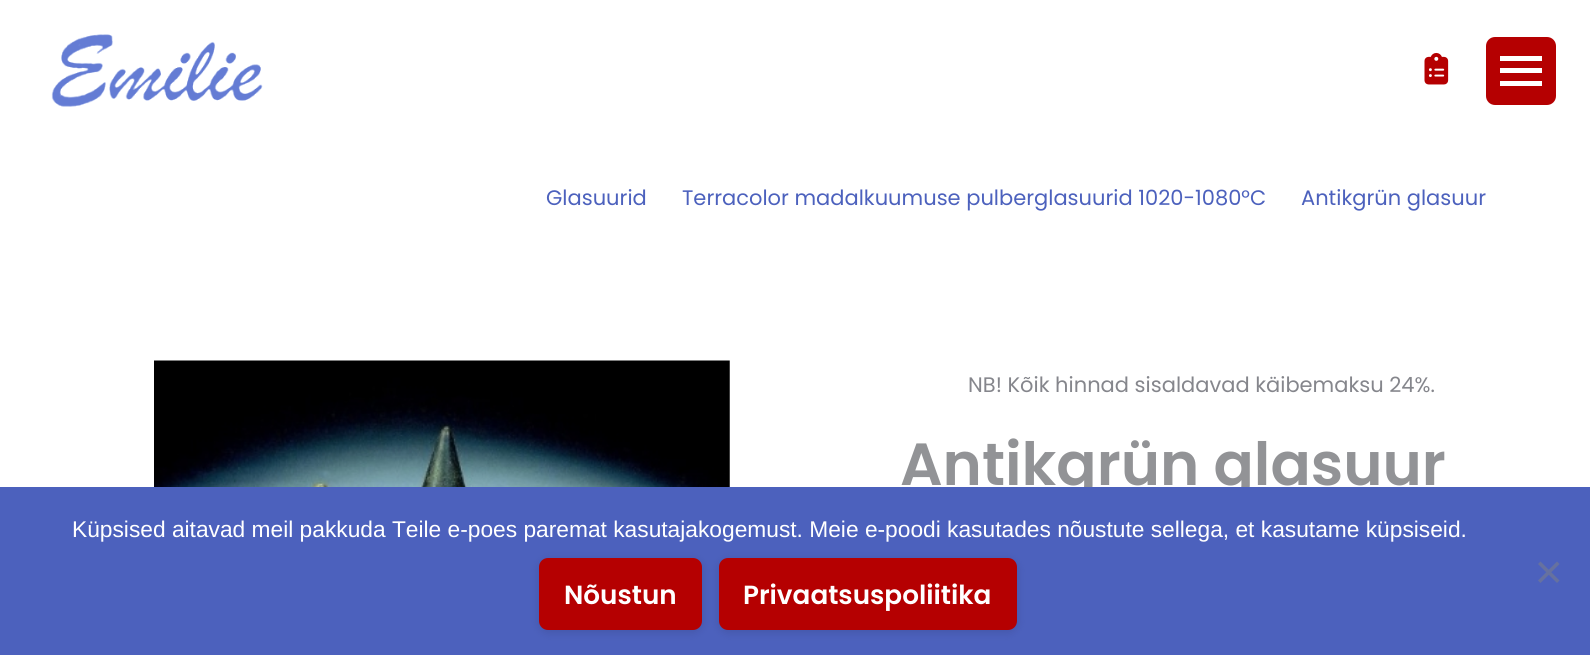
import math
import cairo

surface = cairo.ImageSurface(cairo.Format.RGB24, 1590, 655)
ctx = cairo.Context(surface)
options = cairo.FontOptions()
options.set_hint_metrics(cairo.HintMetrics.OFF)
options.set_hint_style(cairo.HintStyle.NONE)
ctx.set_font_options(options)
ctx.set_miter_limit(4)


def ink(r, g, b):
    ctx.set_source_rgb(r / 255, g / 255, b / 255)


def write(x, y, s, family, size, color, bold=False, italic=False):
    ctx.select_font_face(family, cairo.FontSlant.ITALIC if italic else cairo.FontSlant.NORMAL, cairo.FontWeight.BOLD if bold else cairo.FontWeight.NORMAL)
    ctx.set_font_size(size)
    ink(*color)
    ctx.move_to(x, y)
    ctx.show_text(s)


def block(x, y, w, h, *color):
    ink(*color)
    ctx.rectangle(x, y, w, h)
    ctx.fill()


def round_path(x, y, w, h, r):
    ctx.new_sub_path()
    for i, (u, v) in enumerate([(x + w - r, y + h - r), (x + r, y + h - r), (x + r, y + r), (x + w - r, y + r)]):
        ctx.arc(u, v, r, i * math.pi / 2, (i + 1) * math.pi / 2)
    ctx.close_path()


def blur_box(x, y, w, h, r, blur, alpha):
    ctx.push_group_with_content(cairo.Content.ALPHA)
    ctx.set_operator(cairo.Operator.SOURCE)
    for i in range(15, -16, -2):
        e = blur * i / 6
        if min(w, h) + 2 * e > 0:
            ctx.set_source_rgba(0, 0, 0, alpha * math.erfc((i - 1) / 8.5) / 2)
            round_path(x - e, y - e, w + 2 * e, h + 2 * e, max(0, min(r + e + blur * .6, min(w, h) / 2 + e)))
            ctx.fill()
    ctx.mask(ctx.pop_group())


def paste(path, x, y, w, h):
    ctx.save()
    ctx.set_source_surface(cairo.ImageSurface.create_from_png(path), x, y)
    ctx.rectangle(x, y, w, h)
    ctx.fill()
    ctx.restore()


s1 = dict(family="Poppins", size=21, color=(76, 97, 189))
s2 = dict(family="Poppins", size=21, color=(133, 134, 140))
s3 = dict(family="Poppins SemiBold", size=59.5, color=(146, 147, 150))
s4 = dict(family="Liberation Sans", size=22.75, color=(255, 255, 255))
s5 = dict(family="Poppins SemiBold", size=26.25, color=(255, 255, 255))

ink(255, 255, 255)
ctx.paint()
paste("pic1.png", 51, 34, 212, 73)
paste("pic2.png", 1424, 52, 25, 33)
ink(181, 0, 1)
round_path(1486, 37, 70, 68, 9)
ctx.fill()
block(1500, 56, 42, 5, 255, 255, 255)
block(1500, 68, 42, 5, 255, 255, 255)
block(1500, 81, 42, 5, 255, 255, 255)
write(546, 205, "Glasuurid", **s1)
write(682, 205, "Terracolor madalkuumuse pulberglasuurid 1020-1080°C", **s1)
write(1301, 205, "Antikgrün glasuur", **s1)
paste("pic3.png", 154, 360, 576, 127)
write(968, 392, "NB! Kõik hinnad sisaldavad käibemaksu 24%.", **s2)
write(900, 485, "Antikgrün glasuur", **s3)
block(0, 487, 1590, 168, 76, 97, 189)
write(72, 537, "Küpsised aitavad meil pakkuda Teile e-poes paremat kasutajakogemust. Meie e-poodi kasutades nõustute sellega, et kasutame küpsiseid.", **s4)
ink(102, 113, 159)
ctx.new_path()
ctx.move_to(1557, 561.5)
ctx.line_to(1559.5, 564)
ctx.line_to(1540.5, 583)
ctx.line_to(1538, 580.5)
ctx.close_path()
ctx.fill()
ctx.new_path()
ctx.move_to(1538, 564)
ctx.line_to(1540.5, 561.5)
ctx.line_to(1559.5, 580.5)
ctx.line_to(1557, 583)
ctx.close_path()
ctx.fill()
ink(0, 0, 0)
blur_box(539, 560, 163, 72, 9, 5, 0.12)
ink(181, 0, 1)
round_path(539, 558, 163, 72, 9)
ctx.fill()
write(564, 604, "Nõustun", **s5)
ink(0, 0, 0)
blur_box(719, 560, 298, 72, 9, 5, 0.12)
ink(181, 0, 1)
round_path(719, 558, 298, 72, 9)
ctx.fill()
write(743, 604, "Privaatsuspoliitika", **s5)
surface.write_to_png("screenshot.png")
